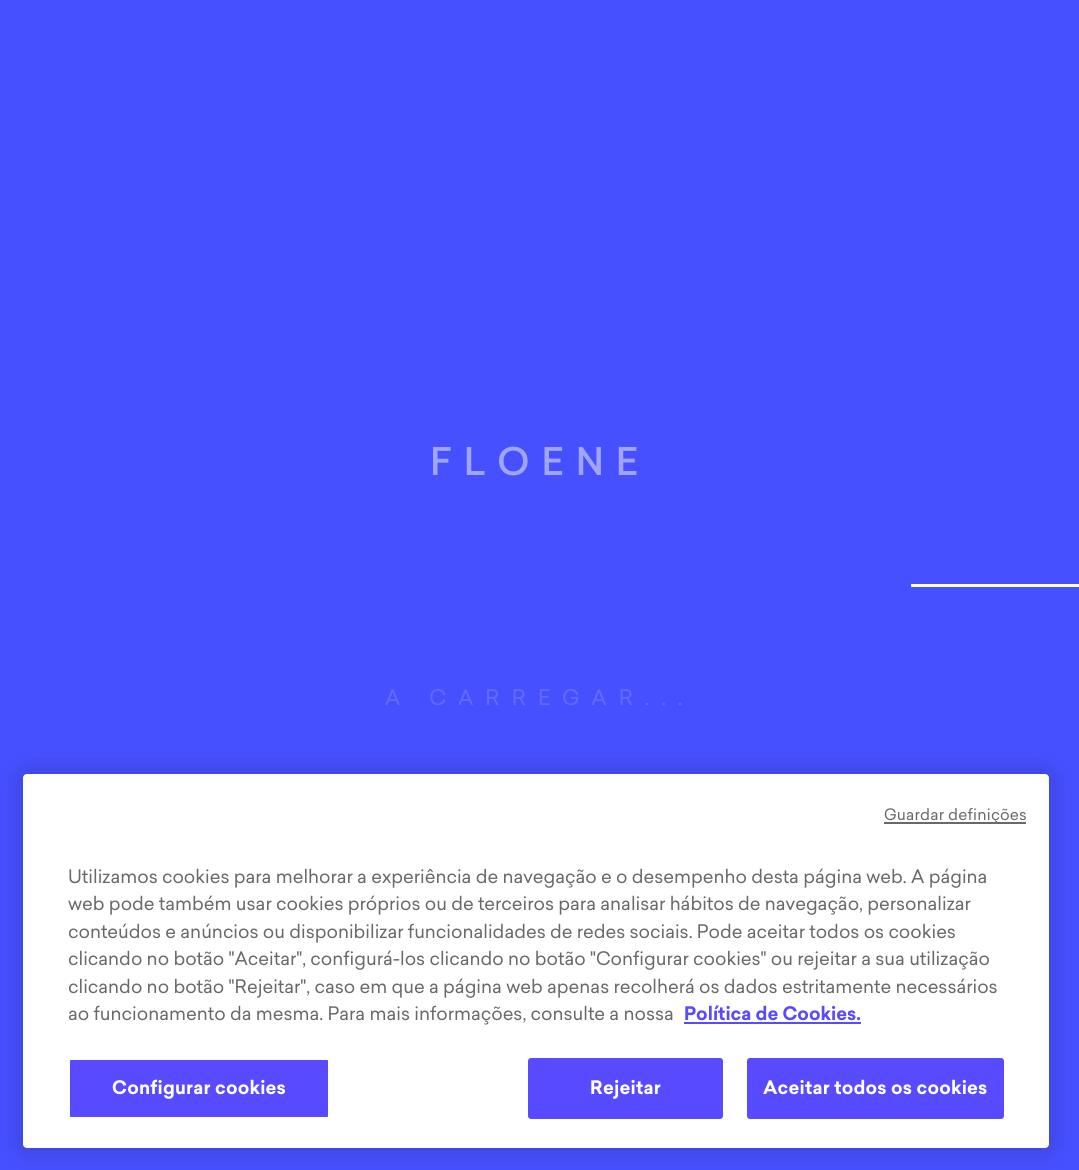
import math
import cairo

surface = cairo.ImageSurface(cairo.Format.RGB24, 1079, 1170)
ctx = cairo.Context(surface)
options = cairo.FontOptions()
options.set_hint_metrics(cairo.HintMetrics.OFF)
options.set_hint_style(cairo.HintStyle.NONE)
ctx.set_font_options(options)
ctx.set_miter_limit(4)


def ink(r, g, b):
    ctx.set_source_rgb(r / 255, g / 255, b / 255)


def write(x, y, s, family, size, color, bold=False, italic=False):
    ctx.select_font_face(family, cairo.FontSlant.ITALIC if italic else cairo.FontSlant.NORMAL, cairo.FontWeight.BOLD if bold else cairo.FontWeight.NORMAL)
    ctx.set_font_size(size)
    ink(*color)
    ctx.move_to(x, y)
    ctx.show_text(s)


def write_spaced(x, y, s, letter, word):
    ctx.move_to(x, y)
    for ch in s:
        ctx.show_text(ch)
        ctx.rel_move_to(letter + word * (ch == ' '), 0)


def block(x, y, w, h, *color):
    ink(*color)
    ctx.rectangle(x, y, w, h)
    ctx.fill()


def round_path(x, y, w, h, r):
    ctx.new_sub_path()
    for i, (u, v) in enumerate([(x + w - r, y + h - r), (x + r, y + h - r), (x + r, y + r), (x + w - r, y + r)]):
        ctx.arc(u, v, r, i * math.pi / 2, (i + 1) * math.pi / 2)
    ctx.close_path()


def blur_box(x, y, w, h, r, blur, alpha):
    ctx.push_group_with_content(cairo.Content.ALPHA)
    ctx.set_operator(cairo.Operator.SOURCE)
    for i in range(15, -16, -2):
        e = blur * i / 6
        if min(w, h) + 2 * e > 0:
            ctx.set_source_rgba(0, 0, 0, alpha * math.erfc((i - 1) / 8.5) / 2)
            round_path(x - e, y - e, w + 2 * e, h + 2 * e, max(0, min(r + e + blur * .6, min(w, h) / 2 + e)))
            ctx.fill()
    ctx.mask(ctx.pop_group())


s1 = dict(family="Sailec", size=18.3, color=(105, 105, 105))
s2 = dict(family="Sailec", size=18.3, color=(88, 74, 254), bold=True)

ink(70, 80, 255)
ctx.paint()
ctx.select_font_face("Sailec Medium")
ctx.set_font_size(37.5)
ink(160, 165, 255)
write_spaced(430, 475, "FLOENE", 12, 0)
ctx.select_font_face("Sailec")
ctx.set_font_size(21)
ink(98, 106, 255)
write_spaced(385, 705, "A CARREGAR...", 12, 0)
block(911, 584, 168, 3, 255, 255, 255)
ink(0, 0, 0)
blur_box(23, 774, 1026, 374, 4, 13.5, 0.2)
ink(255, 255, 255)
round_path(23, 774, 1026, 374, 4)
ctx.fill()
block(884, 822, 142, 2, 105, 105, 105)
ctx.set_font_size(15.5)
write_spaced(884, 820, "Guardar definições", 0.2, 0)
write(68, 883, "Utilizamos cookies para melhorar a experiência de navegação e o desempenho desta página web. A página", **s1)
write(68, 910, "web pode também usar cookies próprios ou de terceiros para analisar hábitos de navegação, personalizar", **s1)
write(68, 938, "conteúdos e anúncios ou disponibilizar funcionalidades de redes sociais. Pode aceitar todos os cookies", **s1)
write(68, 965, "clicando no botão \"Aceitar\", configurá-los clicando no botão \"Configurar cookies\" ou rejeitar a sua utilização", **s1)
write(68, 993, "clicando no botão \"Rejeitar\", caso em que a página web apenas recolherá os dados estritamente necessários", **s1)
write(68, 1020, "ao funcionamento da mesma. Para mais informações, consulte a nossa", **s1)
write(684, 1020, "Política de Cookies.", **s2)
block(684, 1022, 177, 2, 88, 74, 254)
round_path(69, 1059, 260, 59, 2)
ctx.fill_preserve()
ink(255, 255, 255)
ctx.stroke()
write_spaced(112, 1094, "Configurar cookies", 0.2, 0)
ink(88, 74, 254)
round_path(529, 1059, 193, 59, 2)
ctx.fill_preserve()
ctx.stroke()
ink(255, 255, 255)
write_spaced(590, 1094, "Rejeitar", 0.2, 0)
ink(88, 74, 254)
round_path(748, 1059, 255, 59, 2)
ctx.fill_preserve()
ctx.stroke()
ink(255, 255, 255)
write_spaced(763, 1094, "Aceitar todos os cookies", 0.2, 0)
surface.write_to_png("screenshot.png")
